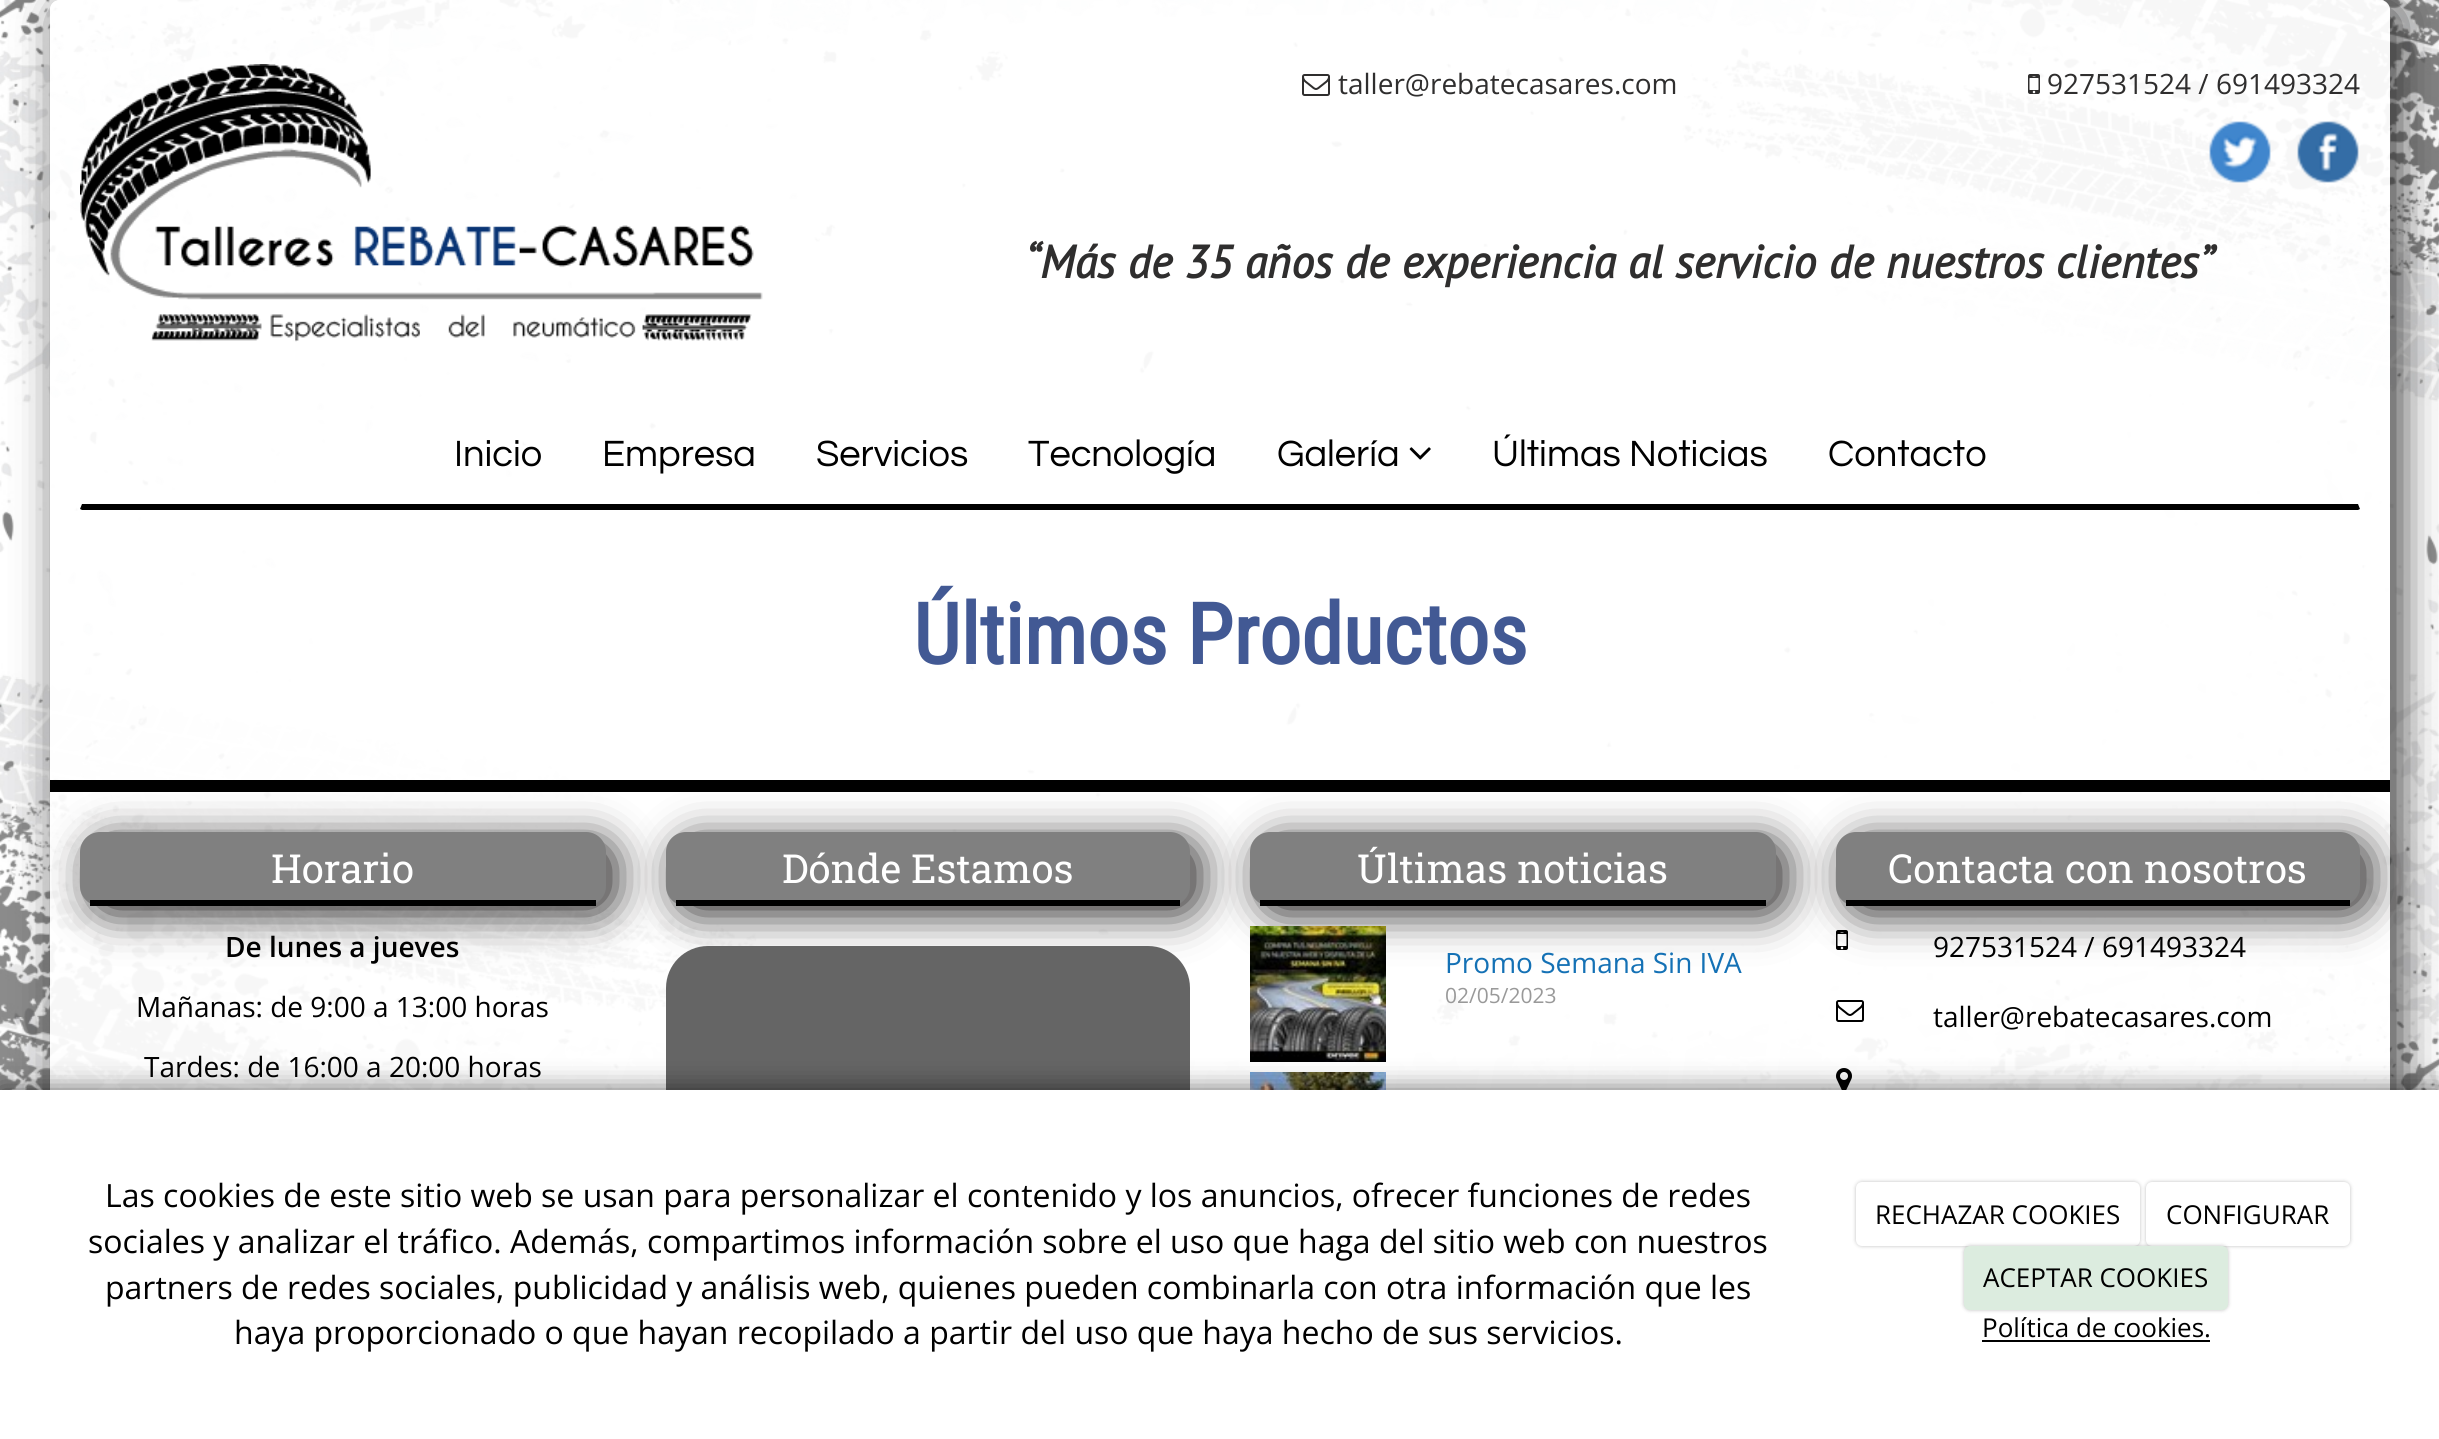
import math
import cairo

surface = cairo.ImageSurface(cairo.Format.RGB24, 2439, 1439)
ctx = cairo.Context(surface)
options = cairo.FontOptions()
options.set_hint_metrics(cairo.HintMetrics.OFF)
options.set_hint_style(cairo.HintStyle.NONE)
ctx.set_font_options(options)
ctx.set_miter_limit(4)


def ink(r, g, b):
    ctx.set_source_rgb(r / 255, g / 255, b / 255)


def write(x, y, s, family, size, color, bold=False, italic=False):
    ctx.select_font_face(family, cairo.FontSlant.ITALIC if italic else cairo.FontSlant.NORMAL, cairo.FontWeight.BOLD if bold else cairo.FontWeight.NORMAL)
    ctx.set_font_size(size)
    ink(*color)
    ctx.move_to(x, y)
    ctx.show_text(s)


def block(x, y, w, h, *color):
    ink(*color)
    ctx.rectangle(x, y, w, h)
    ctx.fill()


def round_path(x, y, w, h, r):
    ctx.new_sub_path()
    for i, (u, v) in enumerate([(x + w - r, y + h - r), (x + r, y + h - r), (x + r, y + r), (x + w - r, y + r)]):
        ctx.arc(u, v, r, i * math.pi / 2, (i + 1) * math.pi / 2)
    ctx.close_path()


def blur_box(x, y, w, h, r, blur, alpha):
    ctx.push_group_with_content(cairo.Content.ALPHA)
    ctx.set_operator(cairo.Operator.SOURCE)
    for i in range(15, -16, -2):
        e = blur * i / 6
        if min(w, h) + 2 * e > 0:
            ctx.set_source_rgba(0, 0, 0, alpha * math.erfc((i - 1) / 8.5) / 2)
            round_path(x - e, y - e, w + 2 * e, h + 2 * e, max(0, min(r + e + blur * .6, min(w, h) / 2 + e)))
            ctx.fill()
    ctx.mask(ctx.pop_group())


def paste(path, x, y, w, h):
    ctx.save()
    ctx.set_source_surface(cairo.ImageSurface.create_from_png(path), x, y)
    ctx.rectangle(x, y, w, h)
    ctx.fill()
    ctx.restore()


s1 = dict(family="Open Sans", size=28, color=(47, 46, 46))
s2 = dict(family="PT Sans", size=46, color=(47, 46, 46), bold=True, italic=True)
s3 = dict(family="Questrial", size=38, color=(0, 0, 0))
s4 = dict(family="Roboto Condensed", size=84, color=(66, 89, 148), bold=True)
s5 = dict(family="Roboto Slab", size=40, color=(255, 255, 255))
s6 = dict(family="Open Sans SemiBold", size=28, color=(0, 0, 0))
s7 = dict(family="Open Sans", size=28, color=(0, 0, 0))
s8 = dict(family="Open Sans", size=28, color=(20, 113, 181))
s9 = dict(family="Open Sans", size=21, color=(153, 153, 153))
s10 = dict(family="Open Sans", size=32, color=(0, 0, 0))
s11 = dict(family="Open Sans", size=26, color=(0, 0, 0))

ink(255, 255, 255)
ctx.paint()
paste("pic1.png", 0, 0, 2439, 1090)
ctx.save()
ctx.set_fill_rule(cairo.FillRule.EVEN_ODD)
ctx.new_path()
ctx.move_to(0, 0)
ctx.line_to(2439, 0)
ctx.line_to(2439, 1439)
ctx.line_to(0, 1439)
ctx.close_path()
ctx.move_to(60, 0)
ctx.line_to(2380, 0)
ctx.curve_to(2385.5, 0, 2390, 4.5, 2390, 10)
ctx.line_to(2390, 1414)
ctx.curve_to(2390, 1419.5, 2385.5, 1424, 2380, 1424)
ctx.line_to(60, 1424)
ctx.curve_to(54.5, 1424, 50, 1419.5, 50, 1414)
ctx.line_to(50, 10)
ctx.curve_to(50, 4.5, 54.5, 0, 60, 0)
ctx.close_path()
ctx.clip()
ink(51, 51, 51)
blur_box(60, 8, 2340, 1424, 10, 21, 1)
ctx.restore()
ctx.set_source_rgba(1, 1, 1, 0.93)
round_path(50, 0, 2340, 1424, 10)
ctx.fill()
paste("pic2.png", 80, 64, 683, 278)
paste("pic3.png", 1302, 74, 28, 22)
write(1338, 94, "taller@rebatecasares.com", **s1)
paste("pic4.png", 2028, 74, 12, 20)
write(2047, 94, "927531524 / 691493324", **s1)
paste("pic5.png", 2209, 121, 62, 62)
paste("pic6.png", 2297, 121, 62, 62)
write(1025, 278, "“Más de 35 años de experiencia al servicio de nuestros clientes”", **s2)
ink(0, 0, 0)
ctx.new_path()
ctx.move_to(82, 510)
ctx.line_to(2358, 510)
ctx.line_to(2360, 509)
ctx.line_to(2358, 504)
ctx.line_to(82, 504)
ctx.line_to(80, 509)
ctx.close_path()
ctx.fill()
write(454, 466, "Inicio", **s3)
write(602, 466, "Empresa", **s3)
write(816, 466, "Servicios", **s3)
write(1028, 466, "Tecnología", **s3)
write(1277, 466, "Galería", **s3)
paste("pic7.png", 1409, 447, 22, 13)
write(1492, 466, "Últimas Noticias", **s3)
write(1828, 466, "Contacto", **s3)
write(913, 664, "Últimos Productos", **s4)
block(50, 780, 2340, 12, 0, 0, 0)
ink(39, 37, 37)
blur_box(90, 840, 526, 74, 20, 21, 1)
ink(128, 128, 128)
round_path(80, 832, 526, 74, 20)
ctx.fill()
block(90, 900, 506, 6, 0, 0, 0)
write(271, 883, "Horario", **s5)
write(225, 957, "De lunes a jueves", **s6)
write(136, 1017, "Mañanas: de 9:00 a 13:00 horas", **s7)
write(144, 1077, "Tardes: de 16:00 a 20:00 horas", **s7)
ink(39, 37, 37)
blur_box(676, 840, 524, 74, 20, 21, 1)
ink(128, 128, 128)
round_path(666, 832, 524, 74, 20)
ctx.fill()
block(676, 900, 504, 6, 0, 0, 0)
write(782, 883, "Dónde Estamos", **s5)
ink(101, 101, 101)
round_path(666, 946, 524, 358, 42)
ctx.fill()
ink(39, 37, 37)
blur_box(1260, 840, 526, 74, 20, 21, 1)
ink(128, 128, 128)
round_path(1250, 832, 526, 74, 20)
ctx.fill()
block(1260, 900, 506, 6, 0, 0, 0)
write(1357, 883, "Últimas noticias", **s5)
paste("pic8.png", 1250, 926, 136, 136)
write(1445, 973, "Promo Semana Sin IVA", **s8)
write(1445, 1003, "02/05/2023", **s9)
paste("pic9.png", 1250, 1072, 136, 18)
ink(39, 37, 37)
blur_box(1846, 840, 524, 74, 20, 21, 1)
ink(128, 128, 128)
round_path(1836, 832, 524, 74, 20)
ctx.fill()
block(1846, 900, 504, 6, 0, 0, 0)
write(1888, 883, "Contacta con nosotros", **s5)
paste("pic10.png", 1836, 930, 12, 20)
write(1933, 957, "927531524 / 691493324", **s7)
paste("pic11.png", 1836, 1000, 28, 22)
write(1933, 1027, "taller@rebatecasares.com", **s7)
paste("pic12.png", 1836, 1068, 16, 22)
ink(0, 0, 0)
blur_box(0, 1090, 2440, 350, 0, 13, 0.6)
block(0, 1090, 2439, 349, 255, 255, 255)
write(105, 1207, "Las cookies de este sitio web se usan para personalizar el contenido y los anuncios, ofrecer funciones de redes", **s10)
write(88, 1253, "sociales y analizar el tráfico. Además, compartimos información sobre el uso que haga del sitio web con nuestros", **s10)
write(105, 1299, "partners de redes sociales, publicidad y análisis web, quienes pueden combinarla con otra información que les", **s10)
write(234, 1344, "haya proporcionado o que hayan recopilado a partir del uso que haya hecho de sus servicios.", **s10)
ink(0, 0, 0)
blur_box(1856, 1182, 284, 64, 6, 2, 0.25)
ink(255, 255, 255)
round_path(1856, 1182, 284, 64, 6)
ctx.fill()
write(1875, 1224, "RECHAZAR COOKIES", **s11)
ink(0, 0, 0)
blur_box(2146, 1182, 204, 64, 6, 2, 0.25)
ink(255, 255, 255)
round_path(2146, 1182, 204, 64, 6)
ctx.fill()
write(2166, 1224, "CONFIGURAR", **s11)
ink(0, 0, 0)
blur_box(1964, 1246, 264, 64, 6, 2, 0.25)
ink(220, 236, 223)
round_path(1964, 1246, 264, 64, 6)
ctx.fill()
write(1983, 1287, "ACEPTAR COOKIES", **s11)
write(1982, 1337, "Política de cookies.", **s11)
block(1982, 1340, 228, 2, 0, 0, 0)
surface.write_to_png("screenshot.png")
